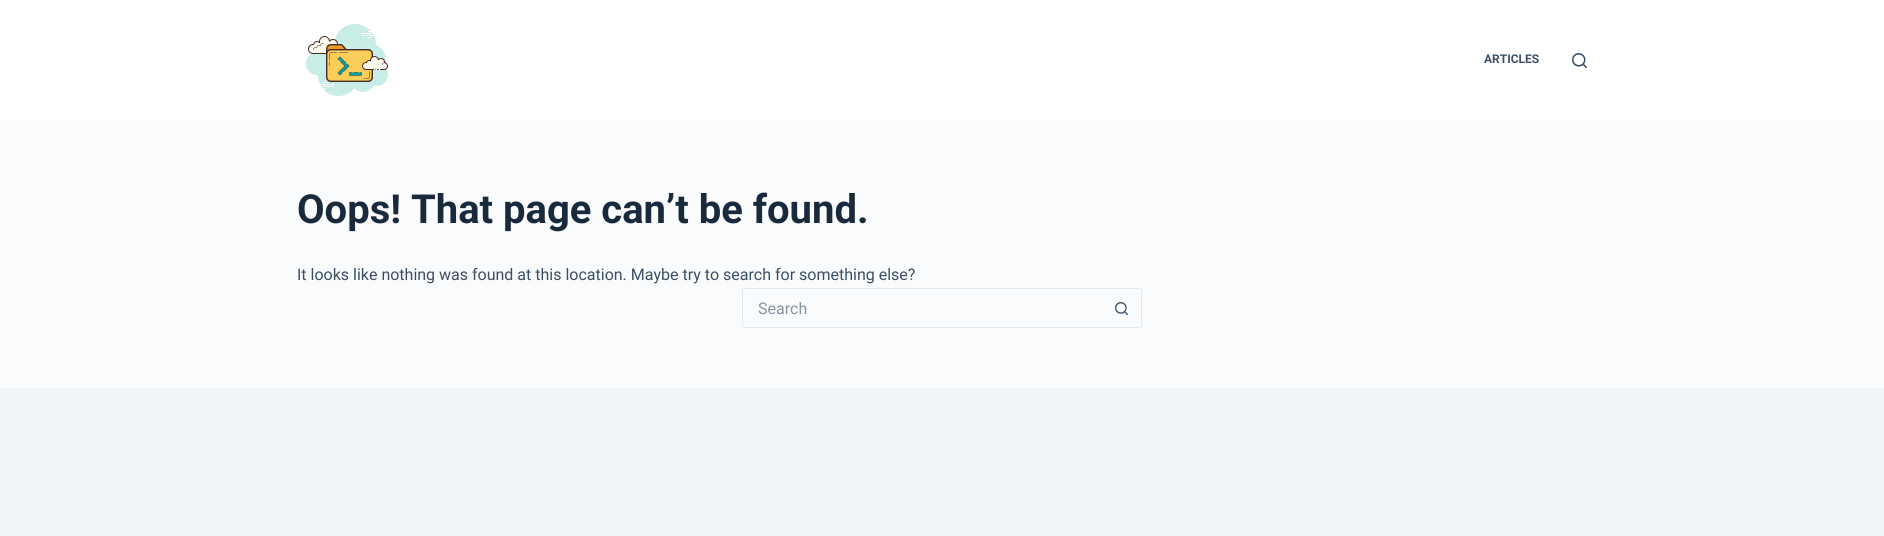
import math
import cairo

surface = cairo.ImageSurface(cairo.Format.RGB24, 1884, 536)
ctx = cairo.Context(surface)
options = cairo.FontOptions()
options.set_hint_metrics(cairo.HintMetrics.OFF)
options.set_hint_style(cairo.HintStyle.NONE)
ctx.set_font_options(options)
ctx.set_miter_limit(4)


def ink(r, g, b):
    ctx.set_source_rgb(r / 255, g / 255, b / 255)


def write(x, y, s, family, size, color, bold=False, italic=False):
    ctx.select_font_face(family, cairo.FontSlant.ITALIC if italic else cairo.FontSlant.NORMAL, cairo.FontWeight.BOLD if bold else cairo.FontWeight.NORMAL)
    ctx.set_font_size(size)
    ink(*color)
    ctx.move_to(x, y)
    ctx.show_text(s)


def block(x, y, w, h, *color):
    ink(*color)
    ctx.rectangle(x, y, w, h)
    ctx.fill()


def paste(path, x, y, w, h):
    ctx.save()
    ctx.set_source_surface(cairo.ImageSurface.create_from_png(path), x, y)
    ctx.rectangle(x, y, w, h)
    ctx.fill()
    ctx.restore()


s1 = dict(family="Roboto", size=12, color=(58, 79, 102), bold=True)
s2 = dict(family="Roboto", size=40, color=(25, 42, 61), bold=True)
s3 = dict(family="Roboto", size=16, color=(58, 79, 102))
s4 = dict(family="Roboto", size=16, color=(135, 148, 162))

ink(250, 251, 252)
ctx.paint()
block(0, 0, 1884, 120, 255, 255, 255)
paste("pic1.png", 306, 24, 82, 72)
write(1484, 63, "ARTICLES", **s1)
paste("pic2.png", 1572, 53, 15, 15)
write(297, 223, "Oops! That page can’t be found.", **s2)
write(297, 280, "It looks like nothing was found at this location. Maybe try to search for something else?", **s3)
ink(225, 232, 237)
ctx.set_fill_rule(cairo.FillRule.EVEN_ODD)
ctx.new_path()
ctx.move_to(745, 288)
ctx.line_to(1102, 288)
ctx.line_to(1102, 328)
ctx.line_to(745, 328)
ctx.curve_to(743, 328, 742, 327, 742, 325)
ctx.line_to(742, 291)
ctx.curve_to(742, 289, 743, 288, 745, 288)
ctx.close_path()
ctx.move_to(745, 289)
ctx.line_to(1102, 289)
ctx.line_to(1102, 327)
ctx.line_to(744, 327)
ctx.curve_to(742, 325, 743, 320, 743, 319)
ctx.line_to(743, 291)
ctx.line_to(744, 289)
ctx.close_path()
ctx.fill()
write(758, 314, "Search", **s4)
ink(225, 232, 237)
ctx.new_path()
ctx.move_to(1102, 288)
ctx.line_to(1139, 288)
ctx.curve_to(1141, 288, 1142, 289, 1142, 291)
ctx.line_to(1142, 325)
ctx.curve_to(1142, 327, 1141, 328, 1139, 328)
ctx.line_to(1102, 328)
ctx.close_path()
ctx.move_to(1102, 289)
ctx.line_to(1139, 289)
ctx.curve_to(1140, 289, 1141, 290, 1141, 291)
ctx.line_to(1141, 325)
ctx.curve_to(1141, 326, 1140, 327, 1139, 327)
ctx.line_to(1102, 327)
ctx.close_path()
ctx.fill()
paste("pic3.png", 1115, 302, 13, 13)
block(0, 388, 1884, 148, 242, 245, 247)
surface.write_to_png("screenshot.png")
